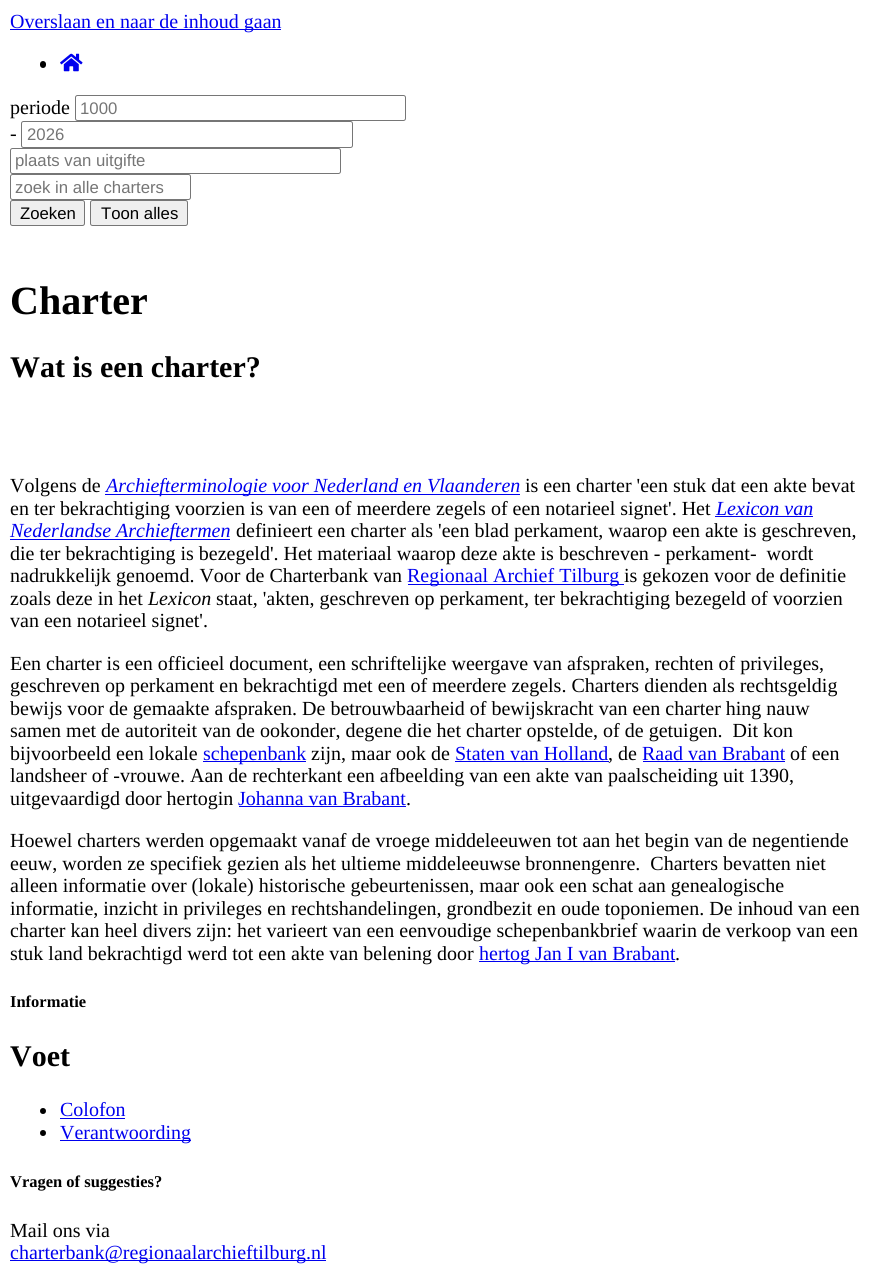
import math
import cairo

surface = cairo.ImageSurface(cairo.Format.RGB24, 875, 1283)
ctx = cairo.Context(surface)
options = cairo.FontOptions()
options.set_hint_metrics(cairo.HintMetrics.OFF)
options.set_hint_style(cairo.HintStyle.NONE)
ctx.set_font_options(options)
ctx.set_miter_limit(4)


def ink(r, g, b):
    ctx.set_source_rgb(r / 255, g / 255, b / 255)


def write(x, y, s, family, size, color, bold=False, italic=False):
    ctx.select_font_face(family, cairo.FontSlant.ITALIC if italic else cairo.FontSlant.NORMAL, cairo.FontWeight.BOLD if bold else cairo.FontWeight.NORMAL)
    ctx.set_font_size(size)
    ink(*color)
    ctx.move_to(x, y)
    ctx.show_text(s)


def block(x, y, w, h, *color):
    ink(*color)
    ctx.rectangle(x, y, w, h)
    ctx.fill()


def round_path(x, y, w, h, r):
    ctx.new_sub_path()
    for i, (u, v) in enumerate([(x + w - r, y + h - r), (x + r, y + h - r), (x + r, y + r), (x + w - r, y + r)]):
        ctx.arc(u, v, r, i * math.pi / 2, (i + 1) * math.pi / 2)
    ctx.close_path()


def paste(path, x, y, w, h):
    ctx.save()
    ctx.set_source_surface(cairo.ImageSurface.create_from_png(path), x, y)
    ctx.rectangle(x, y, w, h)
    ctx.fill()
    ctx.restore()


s1 = dict(family="Liberation Serif", size=20, color=(0, 0, 238))
s2 = dict(family="Liberation Serif", size=20, color=(0, 0, 0))
s3 = dict(family="Liberation Sans", size=16.75, color=(117, 117, 117))
s4 = dict(family="Liberation Sans", size=16.75, color=(0, 0, 0))
s5 = dict(family="Liberation Serif", size=40, color=(0, 0, 0), bold=True)
s6 = dict(family="Liberation Serif", size=30, color=(0, 0, 0), bold=True)
s7 = dict(family="Liberation Serif", size=20, color=(0, 0, 238), italic=True)
s8 = dict(family="Liberation Serif", size=20, color=(0, 0, 0), italic=True)
s9 = dict(family="Liberation Serif", size=16.5, color=(0, 0, 0), bold=True)

ink(255, 255, 255)
ctx.paint()
block(10, 29, 271, 1, 0, 0, 238)
write(10, 28, "Overslaan en naar de inhoud gaan", **s1)
ink(0, 0, 0)
round_path(40, 61, 6, 7, 3)
ctx.fill()
paste("pic1.png", 60, 53, 23, 19)
write(10, 114, "periode", **s2)
round_path(75.5, 95.5, 330, 25, 2)
ink(118, 118, 118)
ctx.set_line_width(1)
ctx.stroke()
write(80, 114, "1000", **s3)
write(10, 140, "-", **s2)
round_path(21.5, 121.5, 331, 26, 2)
ink(118, 118, 118)
ctx.stroke()
write(27, 140, "2026", **s3)
round_path(10.5, 148.5, 330, 25, 2)
ink(118, 118, 118)
ctx.stroke()
write(15, 166, "plaats van uitgifte", **s3)
round_path(10.5, 174.5, 180, 25, 2)
ink(118, 118, 118)
ctx.stroke()
write(15, 193, "zoek in alle charters", **s3)
ink(239, 239, 239)
round_path(10.5, 200.5, 74, 25, 2)
ctx.fill_preserve()
ink(118, 118, 118)
ctx.stroke()
write(20, 219, "Zoeken", **s4)
ink(239, 239, 239)
round_path(90.5, 200.5, 97, 25, 2)
ctx.fill_preserve()
ink(118, 118, 118)
ctx.stroke()
write(101, 219, "Toon alles", **s4)
write(10, 314, "Charter", **s5)
write(10, 377, "Wat is een charter?", **s6)
write(10, 492, "Volgens de", **s2)
block(105, 494, 415, 1, 0, 0, 238)
write(106, 492, "Archiefterminologie voor Nederland en Vlaanderen", **s7)
write(525, 492, "is een charter 'een stuk dat een akte bevat", **s2)
write(10, 515, "en ter bekrachtiging voorzien is van een of meerdere zegels of een notarieel signet'. Het", **s2)
write(716, 515, "Lexicon van", **s7)
block(715, 516, 98, 1, 0, 0, 238)
block(10, 539, 220, 1, 0, 0, 238)
write(10, 537, "Nederlandse Archieftermen", **s7)
write(236, 537, "definieert een charter als 'een blad perkament, waarop een akte is geschreven,", **s2)
write(10, 560, "die ter bekrachtiging is bezegeld'. Het materiaal waarop deze akte is beschreven - perkament-  wordt", **s2)
write(10, 582, "nadrukkelijk genoemd. Voor de Charterbank van", **s2)
block(408, 584, 216, 1, 0, 0, 238)
write(407, 582, "Regionaal Archief Tilburg", **s1)
write(624, 582, "is gekozen voor de definitie", **s2)
write(10, 605, "zoals deze in het", **s2)
write(148, 605, "Lexicon", **s8)
write(216, 605, "staat, 'akten, geschreven op perkament, ter bekrachtiging bezegeld of voorzien", **s2)
write(10, 627, "van een notarieel signet'.", **s2)
write(10, 670, "Een charter is een officieel document, een schriftelijke weergave van afspraken, rechten of privileges,", **s2)
write(10, 692, "geschreven op perkament en bekrachtigd met een of meerdere zegels. Charters dienden als rechtsgeldig", **s2)
write(10, 715, "bewijs voor de gemaakte afspraken. De betrouwbaarheid of bewijskracht van een charter hing nauw", **s2)
write(10, 737, "samen met de autoriteit van de ookonder, degene die het charter opstelde, of de getuigen.  Dit kon", **s2)
write(10, 760, "bijvoorbeeld een lokale", **s2)
block(203, 761, 103, 1, 0, 0, 238)
write(203, 760, "schepenbank", **s1)
write(311, 760, "zijn, maar ook de", **s2)
write(455, 760, "Staten van Holland", **s1)
block(455, 761, 154, 1, 0, 0, 238)
write(608, 760, ", de", **s2)
write(642, 760, "Raad van Brabant", **s1)
block(643, 761, 142, 1, 0, 0, 238)
write(790, 760, "of een", **s2)
write(10, 782, "landsheer of -vrouwe. Aan de rechterkant een afbeelding van een akte van paalscheiding uit 1390,", **s2)
write(10, 805, "uitgevaardigd door hertogin", **s2)
write(238, 805, "Johanna van Brabant", **s1)
block(239, 806, 167, 1, 0, 0, 238)
write(406, 805, ".", **s2)
write(10, 847, "Hoewel charters werden opgemaakt vanaf de vroege middeleeuwen tot aan het begin van de negentiende", **s2)
write(10, 870, "eeuw, worden ze specifiek gezien als het ultieme middeleeuwse bronnengenre.  Charters bevatten niet", **s2)
write(10, 892, "alleen informatie over (lokale) historische gebeurtenissen, maar ook een schat aan genealogische", **s2)
write(10, 915, "informatie, inzicht in privileges en rechtshandelingen, grondbezit en oude toponiemen. De inhoud van een", **s2)
write(10, 937, "charter kan heel divers zijn: het varieert van een eenvoudige schepenbankbrief waarin de verkoop van een", **s2)
write(10, 960, "stuk land bekrachtigd werd tot een akte van belening door", **s2)
block(479, 961, 196, 1, 0, 0, 238)
write(479, 960, "hertog Jan I van Brabant", **s1)
write(675, 960, ".", **s2)
write(10, 1007, "Informatie", **s9)
write(10, 1066, "Voet", **s6)
ctx.new_path()
ctx.arc(43, 1111, 3, 0, 2 * math.pi)
ctx.fill()
write(60, 1116, "Colofon", **s1)
block(60, 1118, 65, 1, 0, 0, 238)
ink(0, 0, 0)
ctx.new_path()
ctx.arc(43, 1133, 3, 0, 2 * math.pi)
ctx.fill()
block(60, 1140, 131, 1, 0, 0, 238)
write(60, 1139, "Verantwoording", **s1)
write(10, 1187, "Vragen of suggesties?", **s9)
write(10, 1237, "Mail ons via", **s2)
block(10, 1260, 316, 1, 0, 0, 238)
write(10, 1259, "charterbank@regionaalarchieftilburg.nl", **s1)
surface.write_to_png("screenshot.png")
